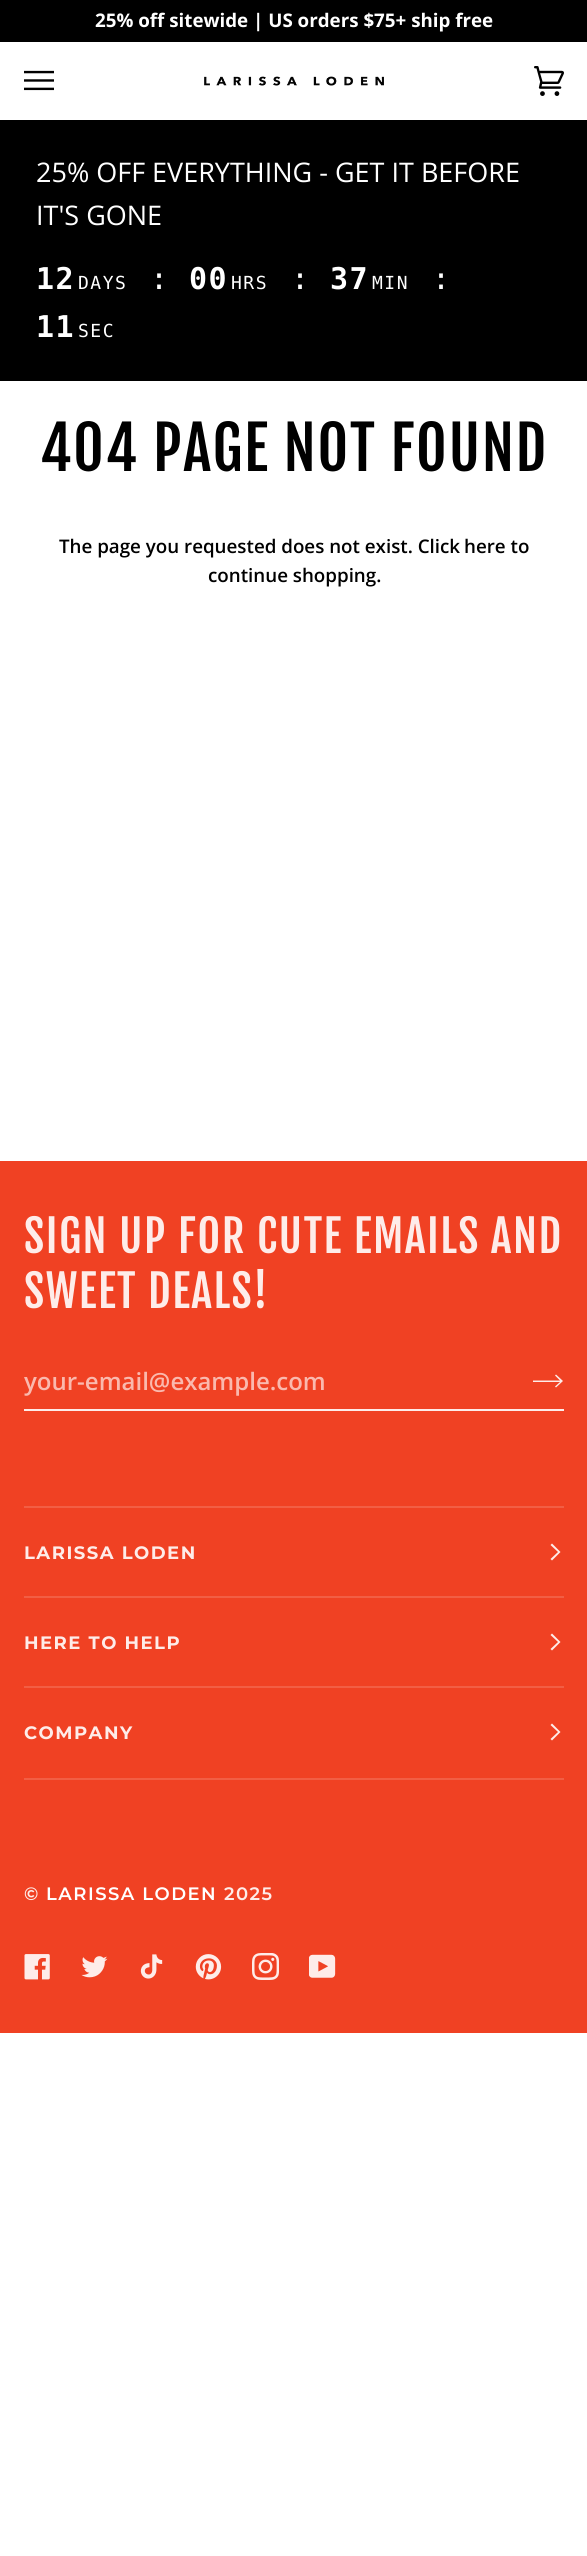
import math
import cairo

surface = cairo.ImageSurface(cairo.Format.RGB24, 587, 2556)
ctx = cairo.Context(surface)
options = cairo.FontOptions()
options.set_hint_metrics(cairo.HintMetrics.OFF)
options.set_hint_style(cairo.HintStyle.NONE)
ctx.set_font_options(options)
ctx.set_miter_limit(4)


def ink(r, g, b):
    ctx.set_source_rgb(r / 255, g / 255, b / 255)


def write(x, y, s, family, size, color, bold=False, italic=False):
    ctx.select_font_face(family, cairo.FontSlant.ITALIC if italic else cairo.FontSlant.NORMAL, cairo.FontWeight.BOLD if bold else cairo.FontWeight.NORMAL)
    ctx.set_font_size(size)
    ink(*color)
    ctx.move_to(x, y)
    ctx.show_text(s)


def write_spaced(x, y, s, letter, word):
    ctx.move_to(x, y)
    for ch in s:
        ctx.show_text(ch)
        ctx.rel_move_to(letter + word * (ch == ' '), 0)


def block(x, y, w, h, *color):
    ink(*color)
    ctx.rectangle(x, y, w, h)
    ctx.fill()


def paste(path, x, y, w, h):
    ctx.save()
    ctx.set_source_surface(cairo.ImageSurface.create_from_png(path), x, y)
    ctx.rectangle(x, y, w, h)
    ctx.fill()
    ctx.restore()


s1 = dict(family="Open Sans", size=18.75, color=(255, 255, 255), bold=True)
s2 = dict(family="Open Sans", size=27, color=(255, 255, 255))
s3 = dict(family="Open Sans SemiBold", size=18.75, color=(0, 0, 0))
s4 = dict(family="Open Sans SemiBold", size=24, color=(250, 185, 174))

ink(255, 255, 255)
ctx.paint()
block(0, 0, 587, 42, 0, 0, 0)
write(95, 27, "25% off sitewide | US orders $75+ ship free", **s1)
paste("pic1.png", 24, 70, 30, 21)
paste("pic2.png", 204, 76, 180, 10)
paste("pic3.png", 534, 66, 30, 30)
block(0, 120, 587, 261, 0, 0, 0)
write(36, 182, "25% OFF EVERYTHING - GET IT BEFORE", **s2)
write(36, 225, "IT'S GONE", **s2)
ctx.select_font_face("DejaVu Sans Mono", cairo.FontSlant.NORMAL, cairo.FontWeight.BOLD)
ctx.set_font_size(30)
write_spaced(36, 289, "12", 1.5, 0)
ctx.select_font_face("DejaVu Sans Mono")
ctx.set_font_size(18)
write_spaced(78, 289, "DAYS", 1.5, 0)
ctx.set_font_size(30)
write_spaced(150, 289, ":", 1.5, 0)
ctx.select_font_face("DejaVu Sans Mono", cairo.FontSlant.NORMAL, cairo.FontWeight.BOLD)
write_spaced(189, 289, "00", 1.5, 0)
ctx.select_font_face("DejaVu Sans Mono")
ctx.set_font_size(18)
write_spaced(231, 289, "HRS", 1.5, 0)
ctx.set_font_size(30)
write_spaced(291, 289, ":", 1.5, 0)
ctx.select_font_face("DejaVu Sans Mono", cairo.FontSlant.NORMAL, cairo.FontWeight.BOLD)
write_spaced(330, 289, "37", 1.5, 0)
ctx.select_font_face("DejaVu Sans Mono")
ctx.set_font_size(18)
write_spaced(372, 289, "MIN", 1.5, 0)
ctx.set_font_size(30)
write_spaced(432, 289, ":", 1.5, 0)
ctx.select_font_face("DejaVu Sans Mono", cairo.FontSlant.NORMAL, cairo.FontWeight.BOLD)
write_spaced(36, 337, "11", 1.5, 0)
ctx.select_font_face("DejaVu Sans Mono")
ctx.set_font_size(18)
write_spaced(78, 337, "SEC", 1.5, 0)
ctx.select_font_face("Fjalla One")
ctx.set_font_size(59.4)
ink(0, 0, 0)
write_spaced(40, 471, "404 PAGE NOT FOUND", 1.5, 0)
write(59, 553, "The page you requested does not exist. Click", **s3)
write(464, 553, "here to", **s3)
write(208, 582, "continue shopping.", **s3)
block(0, 1161, 587, 872, 240, 65, 35)
ctx.select_font_face("Fjalla One")
ctx.set_font_size(44.1)
ink(254, 236, 233)
write_spaced(24, 1253, "SIGN UP FOR CUTE EMAILS AND", 1.5, 0)
write_spaced(24, 1308, "SWEET DEALS!", 1.5, 0)
block(24, 1409, 540, 2, 254, 236, 233)
write(24, 1390, "your-email@example.com", **s4)
ink(254, 236, 233)
ctx.new_path()
ctx.move_to(555, 1375.5)
ctx.line_to(556, 1374.5)
ctx.line_to(563, 1381)
ctx.line_to(556, 1387.5)
ctx.line_to(555, 1386.5)
ctx.line_to(560, 1382)
ctx.line_to(533, 1382)
ctx.line_to(533, 1380.5)
ctx.line_to(560, 1380.5)
ctx.close_path()
ctx.fill()
block(24, 1506, 540, 2, 242, 94, 68)
block(24, 1596, 540, 2, 242, 94, 68)
ctx.select_font_face("Montserrat", cairo.FontSlant.NORMAL, cairo.FontWeight.BOLD)
ctx.set_font_size(18)
ink(254, 236, 233)
write_spaced(24, 1559, "LARISSA LODEN", 1.5, 0)
ctx.set_fill_rule(cairo.FillRule.EVEN_ODD)
ctx.new_path()
ctx.move_to(558, 1552)
ctx.line_to(550.5, 1545)
ctx.line_to(552, 1543.5)
ctx.line_to(560.5, 1552)
ctx.line_to(552, 1560.5)
ctx.line_to(550.5, 1559)
ctx.close_path()
ctx.fill()
block(24, 1686, 540, 2, 242, 94, 68)
ink(254, 236, 233)
write_spaced(24, 1649, "HERE TO HELP", 1.5, 0)
ctx.new_path()
ctx.move_to(558, 1642)
ctx.line_to(550.5, 1635)
ctx.line_to(552, 1633.5)
ctx.line_to(560.5, 1642)
ctx.line_to(552, 1650.5)
ctx.line_to(550.5, 1649)
ctx.close_path()
ctx.fill()
block(24, 1778, 540, 2, 242, 94, 68)
ink(254, 236, 233)
write_spaced(24, 1739, "COMPANY", 1.5, 0)
ctx.new_path()
ctx.move_to(558, 1732)
ctx.line_to(550.5, 1725)
ctx.line_to(552, 1723.5)
ctx.line_to(560.5, 1732)
ctx.line_to(552, 1740.5)
ctx.line_to(550.5, 1739)
ctx.close_path()
ctx.fill()
ctx.select_font_face("Montserrat SemiBold")
write_spaced(24, 1900, "©", 1.5, 0)
ink(255, 255, 255)
write_spaced(46, 1900, "LARISSA LODEN", 1.5, 0)
ink(254, 236, 233)
write_spaced(224, 1900, "2025", 1.5, 0)
paste("pic4.png", 24, 1954, 26, 26)
paste("pic5.png", 81, 1956, 27, 22)
paste("pic6.png", 140, 1954, 23, 25)
paste("pic7.png", 195, 1954, 27, 26)
paste("pic8.png", 252, 1953, 27, 27)
paste("pic9.png", 309, 1954, 27, 24)
surface.write_to_png("screenshot.png")
